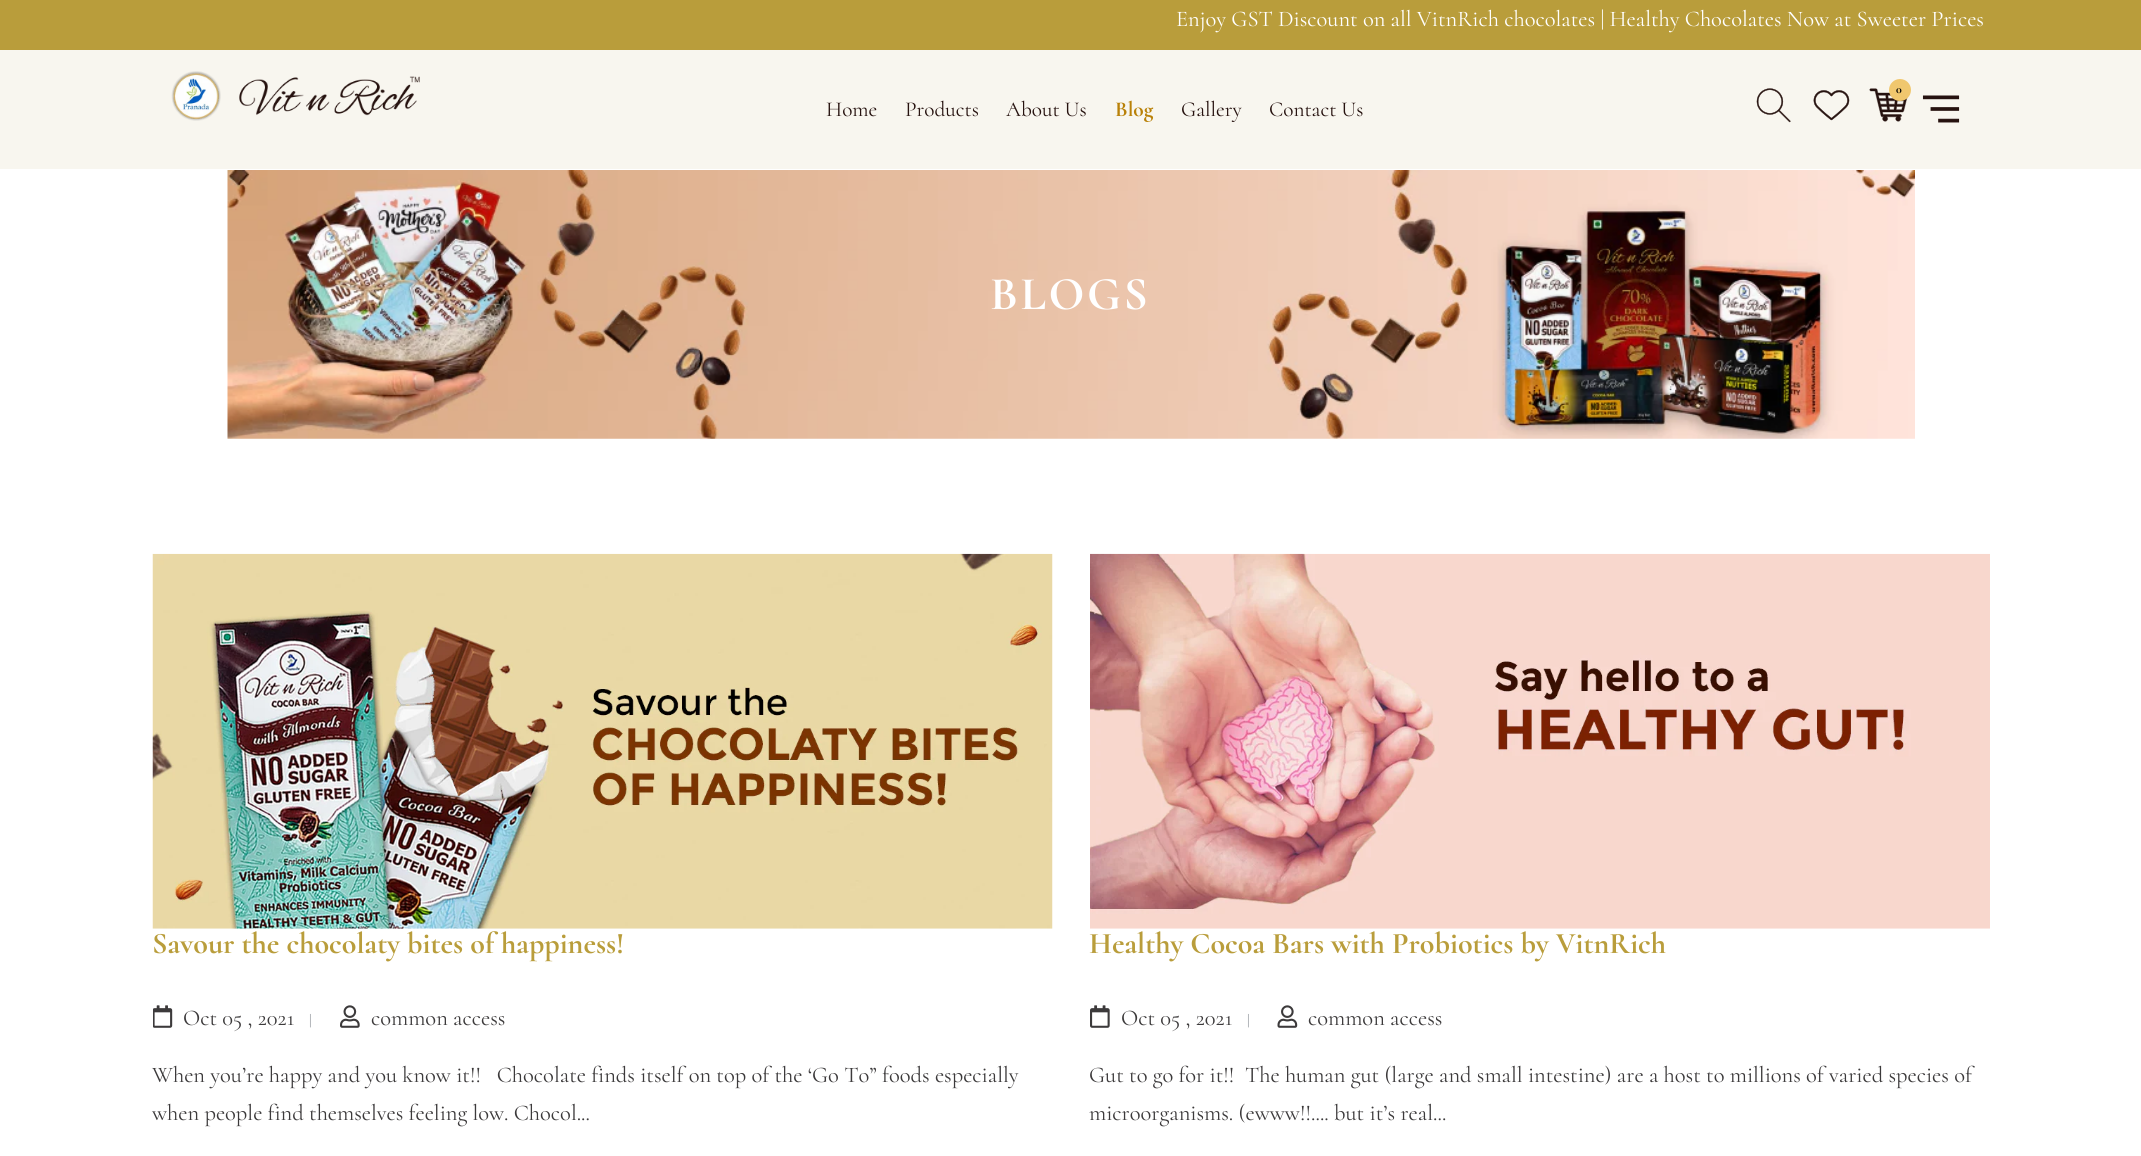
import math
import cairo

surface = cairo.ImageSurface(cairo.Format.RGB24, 2141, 1156)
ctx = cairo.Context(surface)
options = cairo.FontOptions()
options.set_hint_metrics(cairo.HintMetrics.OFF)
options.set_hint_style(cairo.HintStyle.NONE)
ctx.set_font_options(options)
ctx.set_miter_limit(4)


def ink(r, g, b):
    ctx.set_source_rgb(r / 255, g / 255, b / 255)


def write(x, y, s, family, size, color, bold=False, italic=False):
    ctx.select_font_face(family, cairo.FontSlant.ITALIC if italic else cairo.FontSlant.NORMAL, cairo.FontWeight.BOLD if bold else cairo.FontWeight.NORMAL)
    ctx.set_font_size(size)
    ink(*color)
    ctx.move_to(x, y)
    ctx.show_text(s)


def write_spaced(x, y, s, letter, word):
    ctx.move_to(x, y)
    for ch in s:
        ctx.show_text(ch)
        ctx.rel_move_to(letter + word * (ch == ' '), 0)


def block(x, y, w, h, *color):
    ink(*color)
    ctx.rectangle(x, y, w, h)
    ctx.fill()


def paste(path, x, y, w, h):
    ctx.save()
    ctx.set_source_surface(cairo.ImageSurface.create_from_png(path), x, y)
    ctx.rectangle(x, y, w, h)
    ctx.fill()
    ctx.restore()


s1 = dict(family="Cormorant", size=22.5, color=(255, 255, 255))
s2 = dict(family="Cormorant", size=12, color=(0, 0, 0), bold=True)
s3 = dict(family="Cormorant", size=21.25, color=(38, 18, 15))
s4 = dict(family="Cormorant", size=21.25, color=(185, 129, 8), bold=True)
s5 = dict(family="Cormorant", size=30, color=(185, 157, 59), bold=True)
s6 = dict(family="Cormorant", size=22.5, color=(60, 58, 59))
s7 = dict(family="Cormorant", size=15, color=(129, 134, 142))

ink(255, 255, 255)
ctx.paint()
block(0, 0, 2141, 50, 185, 157, 59)
write(1176, 26, "Enjoy GST Discount on all VitnRich chocolates | Healthy Chocolates Now at Sweeter Prices", **s1)
block(0, 50, 2141, 119, 248, 246, 239)
paste("pic1.png", 171, 71, 249, 50)
paste("pic2.png", 1756, 88, 35, 35)
paste("pic3.png", 1813, 90, 37, 31)
paste("pic4.png", 1869, 88, 39, 34)
ink(240, 199, 110)
ctx.arc(1900, 90, 11, 0, 2 * math.pi)
ctx.fill()
write(1896, 93, "0", **s2)
paste("pic5.png", 1922, 95, 38, 28)
write(826, 116, "Home", **s3)
write(905, 116, "Products", **s3)
write(1006, 116, "About Us", **s3)
write(1115, 116, "Blog", **s4)
write(1181, 116, "Gallery", **s3)
write(1269, 116, "Contact Us", **s3)
paste("pic6.png", 227, 170, 1688, 269)
ctx.select_font_face("Cormorant", cairo.FontSlant.NORMAL, cairo.FontWeight.BOLD)
ctx.set_font_size(47)
ink(255, 255, 255)
write_spaced(990, 309, "BLOGS", 2.5, 0)
paste("pic7.png", 152, 553, 901, 376)
write(152, 953, "Savour the chocolaty bites of happiness!", **s5)
paste("pic8.png", 153, 1005, 20, 23)
write(183, 1025, "Oct 05 , 2021", **s6)
write(309, 1025, "|", **s7)
paste("pic9.png", 340, 1005, 20, 23)
write(371, 1025, "common access", **s6)
write(152, 1082, "When you’re happy and you know it!!   Chocolate finds itself on top of the ‘Go To” foods especially", **s6)
write(152, 1120, "when people find themselves feeling low. Chocol...", **s6)
paste("pic10.png", 1090, 553, 900, 376)
write(1089, 953, "Healthy Cocoa Bars with Probiotics by VitnRich", **s5)
paste("pic11.png", 1090, 1005, 20, 23)
write(1121, 1025, "Oct 05 , 2021", **s6)
write(1247, 1025, "|", **s7)
paste("pic12.png", 1277, 1005, 21, 23)
write(1308, 1025, "common access", **s6)
write(1089, 1082, "Gut to go for it!!  The human gut (large and small intestine) are a host to millions of varied species of", **s6)
write(1089, 1120, "microorganisms. (ewww!!.... but it’s real...", **s6)
surface.write_to_png("screenshot.png")
